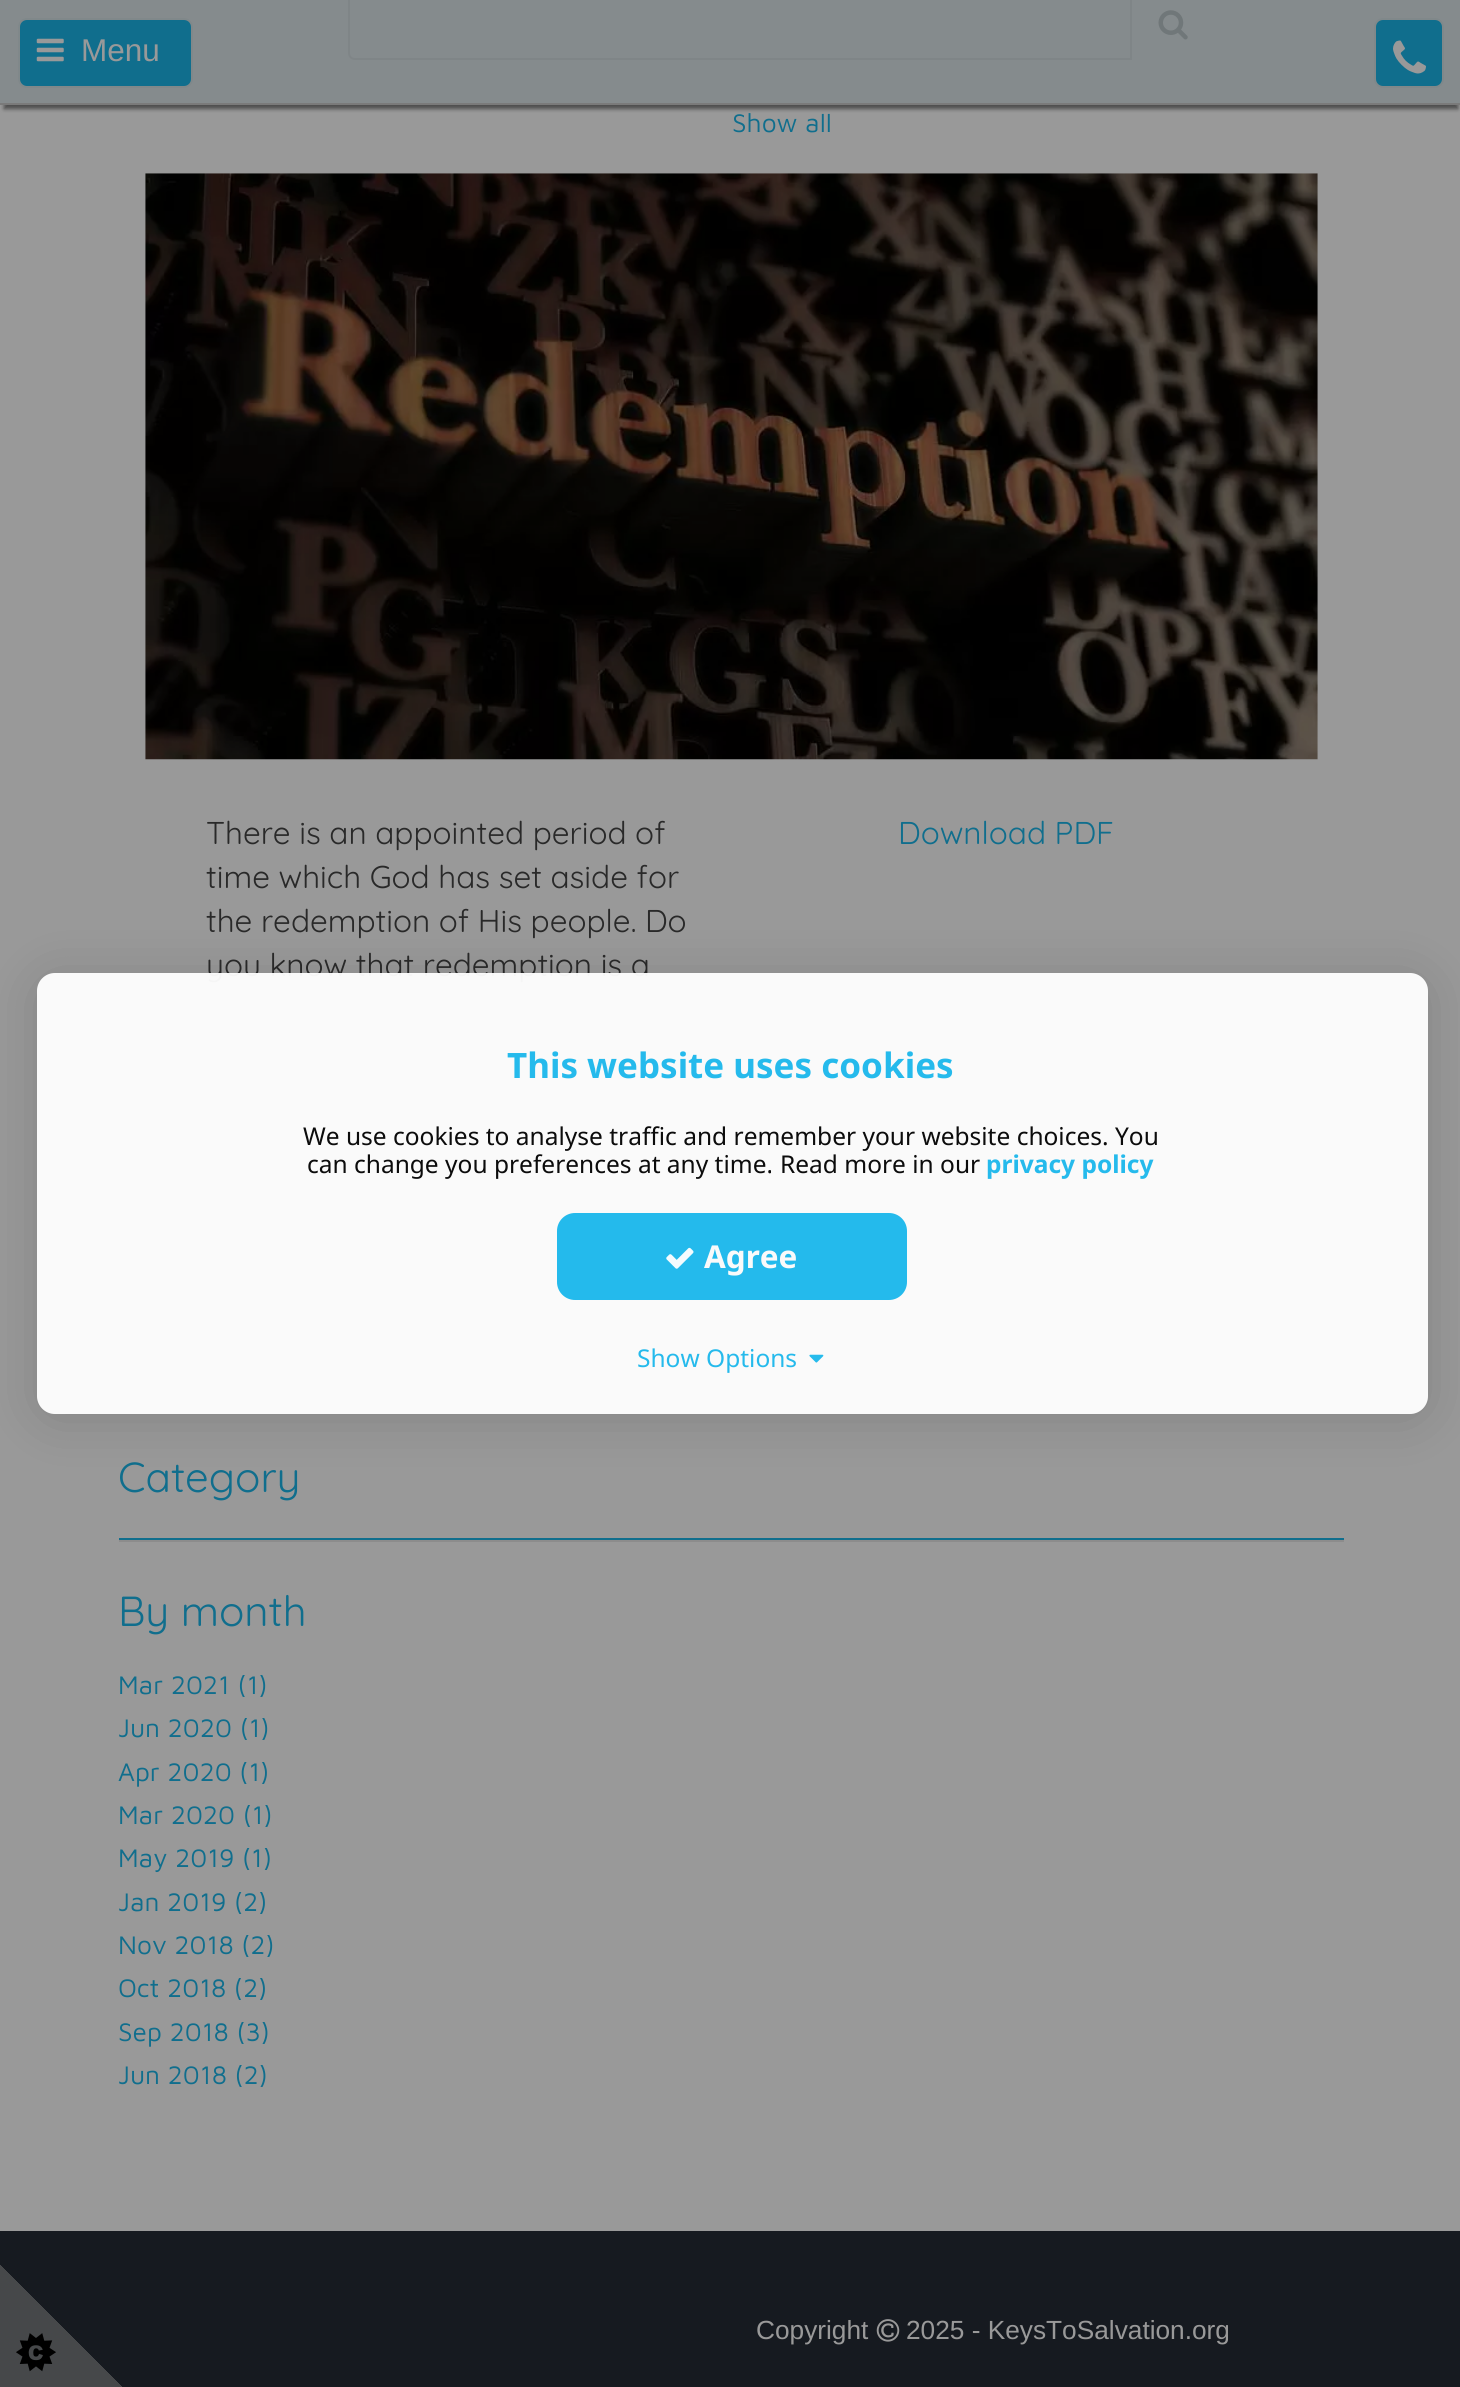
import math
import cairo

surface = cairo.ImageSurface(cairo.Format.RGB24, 1460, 2387)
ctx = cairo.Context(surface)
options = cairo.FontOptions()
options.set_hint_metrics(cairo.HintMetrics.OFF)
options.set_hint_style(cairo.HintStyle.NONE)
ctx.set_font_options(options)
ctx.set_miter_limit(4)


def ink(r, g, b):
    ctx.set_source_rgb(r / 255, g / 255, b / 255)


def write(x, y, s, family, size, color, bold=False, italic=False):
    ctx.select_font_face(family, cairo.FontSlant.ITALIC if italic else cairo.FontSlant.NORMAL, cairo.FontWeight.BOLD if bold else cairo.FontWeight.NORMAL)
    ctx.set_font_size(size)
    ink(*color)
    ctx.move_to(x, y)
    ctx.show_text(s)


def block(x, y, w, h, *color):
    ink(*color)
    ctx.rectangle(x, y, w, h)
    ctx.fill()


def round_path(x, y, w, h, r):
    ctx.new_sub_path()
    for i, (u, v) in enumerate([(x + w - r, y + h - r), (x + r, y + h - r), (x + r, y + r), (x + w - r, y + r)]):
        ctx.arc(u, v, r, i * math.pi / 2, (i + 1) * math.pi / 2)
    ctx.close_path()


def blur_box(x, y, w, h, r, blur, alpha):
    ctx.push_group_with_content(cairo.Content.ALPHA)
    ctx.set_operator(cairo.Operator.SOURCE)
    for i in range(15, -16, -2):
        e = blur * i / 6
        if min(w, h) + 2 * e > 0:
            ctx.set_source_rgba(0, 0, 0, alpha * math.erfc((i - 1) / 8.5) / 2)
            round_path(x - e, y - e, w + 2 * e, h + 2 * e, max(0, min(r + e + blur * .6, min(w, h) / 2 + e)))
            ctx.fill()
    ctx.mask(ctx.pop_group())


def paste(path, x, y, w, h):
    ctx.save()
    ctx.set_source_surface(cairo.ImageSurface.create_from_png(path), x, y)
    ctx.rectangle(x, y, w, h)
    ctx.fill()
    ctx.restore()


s1 = dict(family="Liberation Sans", size=31.5, color=(153, 153, 153))
s2 = dict(family="Maven Pro", size=26.25, color=(16, 110, 141))
s3 = dict(family="Quicksand Light", size=31.5, color=(41, 41, 41))
s4 = dict(family="Quicksand Light", size=31.5, color=(16, 110, 141))
s5 = dict(family="Quicksand Light", size=42, color=(16, 110, 141))
s6 = dict(family="Liberation Sans", size=26.25, color=(153, 153, 153))
s7 = dict(family="Noto Sans", size=35, color=(37, 186, 236), bold=True)
s8 = dict(family="Noto Sans", size=24.5, color=(12, 12, 12))
s9 = dict(family="Noto Sans", size=24.5, color=(37, 186, 236), bold=True)
s10 = dict(family="Noto Sans", size=31.5, color=(250, 250, 250), bold=True)
s11 = dict(family="Noto Sans", size=24.5, color=(37, 186, 236))

ink(153, 153, 153)
ctx.paint()
block(0, 0, 1460, 103, 133, 139, 141)
ctx.new_path()
ctx.move_to(355, -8)
ctx.line_to(1131, -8)
ctx.line_to(1131, 59)
ctx.line_to(355, 59)
ctx.curve_to(351.5, 59, 349, 56.5, 349, 53)
ctx.line_to(349, -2)
ctx.curve_to(349, -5.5, 351.5, -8, 355, -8)
ctx.close_path()
ink(127, 133, 135)
ctx.stroke()
paste("pic3.png", 1158, 10, 30, 30)
ctx.save()
ctx.rectangle(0, 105, 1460, 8)
ctx.clip()
ink(77, 77, 77)
blur_box(4, 11, 1454, 98, 0, 2, 1)
ctx.restore()
block(0, 103, 1460, 2, 122, 122, 122)
ink(16, 110, 141)
round_path(19, 19, 173, 68, 8)
ctx.fill_preserve()
ink(128, 136, 138)
ctx.stroke()
paste("pic1.png", 36, 38, 28, 24)
write(81, 61, "Menu", **s1)
ink(16, 110, 141)
round_path(1375, 19, 68, 68, 8)
ctx.fill_preserve()
ink(128, 136, 138)
ctx.stroke()
paste("pic2.png", 1393, 40, 33, 34)
write(732, 132, "Show all", **s2)
paste("pic4.png", 145, 173, 1173, 587)
write(206, 844, "There is an appointed period of", **s3)
write(206, 888, "time which God has set aside for", **s3)
write(206, 932, "the redemption of His people. Do", **s3)
write(206, 976, "you know that redemption is a", **s3)
write(898, 844, "Download PDF", **s4)
write(118, 1492, "Category", **s5)
block(119, 1538, 1225, 2, 16, 110, 141)
block(119, 1540, 1225, 2, 140, 140, 140)
write(118, 1626, "By month", **s5)
write(118, 1694, "Mar 2021 (1)", **s2)
write(118, 1737, "Jun 2020 (1)", **s2)
write(118, 1781, "Apr 2020 (1)", **s2)
write(118, 1824, "Mar 2020 (1)", **s2)
write(118, 1867, "May 2019 (1)", **s2)
write(118, 1911, "Jan 2019 (2)", **s2)
write(118, 1954, "Nov 2018 (2)", **s2)
write(118, 1997, "Oct 2018 (2)", **s2)
write(118, 2041, "Sep 2018 (3)", **s2)
write(118, 2084, "Jun 2018 (2)", **s2)
block(0, 2231, 1460, 156, 22, 26, 32)
write(756, 2339, "Copyright", **s6)
paste("pic5.png", 876, 2319, 24, 23)
write(906, 2339, "2025 - KeysToSalvation.org", **s6)
ctx.save()
ctx.set_fill_rule(cairo.FillRule.EVEN_ODD)
ctx.new_path()
ctx.move_to(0, 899)
ctx.line_to(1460, 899)
ctx.line_to(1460, 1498)
ctx.line_to(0, 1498)
ctx.close_path()
ctx.move_to(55, 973)
ctx.line_to(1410, 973)
ctx.curve_to(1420, 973, 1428, 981, 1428, 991)
ctx.line_to(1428, 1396)
ctx.curve_to(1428, 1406, 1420, 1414, 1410, 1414)
ctx.line_to(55, 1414)
ctx.curve_to(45, 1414, 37, 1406, 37, 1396)
ctx.line_to(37, 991)
ctx.curve_to(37, 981, 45, 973, 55, 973)
ctx.close_path()
ctx.clip()
ink(0, 0, 0)
blur_box(37, 978, 1391, 441, 18, 26, 0.15)
ctx.restore()
ctx.set_source_rgba(1, 1, 1, 0.95)
round_path(37, 973, 1391, 441, 18)
ctx.fill()
write(507, 1078, "This website uses cookies", **s7)
write(303, 1145, "We use cookies to analyse traffic and remember your website choices.", **s8)
write(1115, 1145, "You", **s8)
write(307, 1173, "can change you preferences at any time.", **s8)
write(780, 1173, "Read more in our", **s8)
write(986, 1173, "privacy policy", **s9)
ctx.set_source_rgba(0.102, 0.718, 0.922, 0.95)
round_path(557, 1213, 350, 87, 18)
ctx.fill()
paste("pic6.png", 666, 1247, 28, 22)
write(704, 1268, "Agree", **s10)
write(637, 1367, "Show Options", **s11)
paste("pic7.png", 809, 1354, 15, 9)
gradient = cairo.LinearGradient(123, 2265, 0, 2387)
gradient.add_color_stop_rgba(0.5, 0.086, 0.102, 0.125, 1)
gradient.add_color_stop_rgba(0.5, 0.275, 0.282, 0.29, 1)
ctx.set_source(gradient)
ctx.rectangle(0, 2265, 122, 122)
ctx.fill()
paste("pic8.png", 16, 2333, 40, 39)
surface.write_to_png("screenshot.png")
